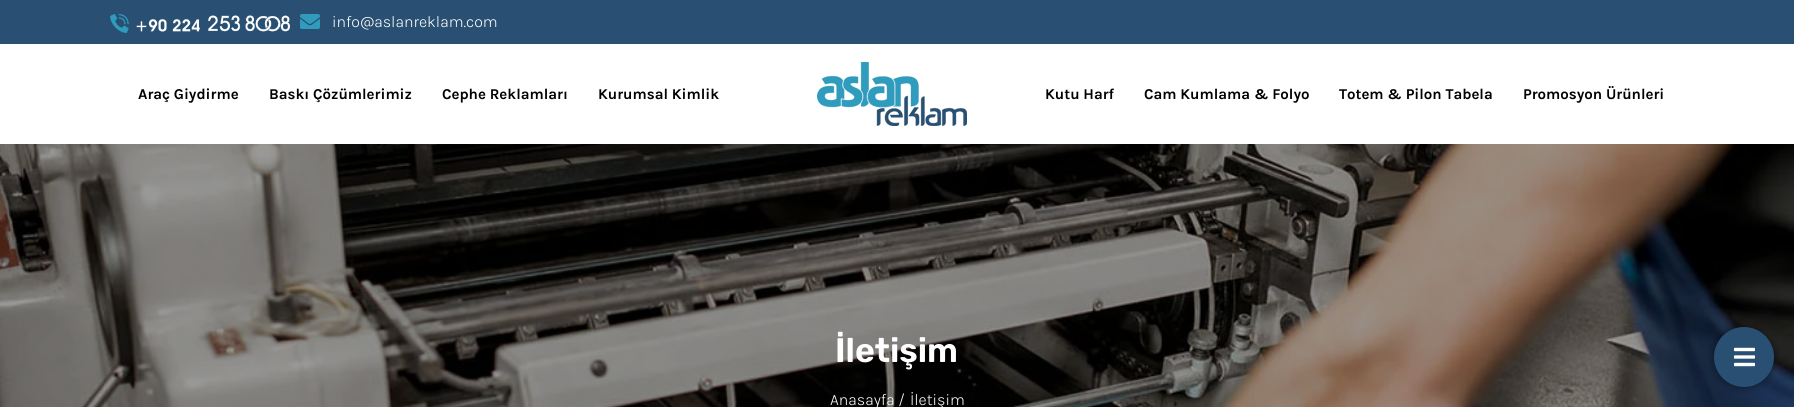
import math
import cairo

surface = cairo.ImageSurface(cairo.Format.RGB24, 1794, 407)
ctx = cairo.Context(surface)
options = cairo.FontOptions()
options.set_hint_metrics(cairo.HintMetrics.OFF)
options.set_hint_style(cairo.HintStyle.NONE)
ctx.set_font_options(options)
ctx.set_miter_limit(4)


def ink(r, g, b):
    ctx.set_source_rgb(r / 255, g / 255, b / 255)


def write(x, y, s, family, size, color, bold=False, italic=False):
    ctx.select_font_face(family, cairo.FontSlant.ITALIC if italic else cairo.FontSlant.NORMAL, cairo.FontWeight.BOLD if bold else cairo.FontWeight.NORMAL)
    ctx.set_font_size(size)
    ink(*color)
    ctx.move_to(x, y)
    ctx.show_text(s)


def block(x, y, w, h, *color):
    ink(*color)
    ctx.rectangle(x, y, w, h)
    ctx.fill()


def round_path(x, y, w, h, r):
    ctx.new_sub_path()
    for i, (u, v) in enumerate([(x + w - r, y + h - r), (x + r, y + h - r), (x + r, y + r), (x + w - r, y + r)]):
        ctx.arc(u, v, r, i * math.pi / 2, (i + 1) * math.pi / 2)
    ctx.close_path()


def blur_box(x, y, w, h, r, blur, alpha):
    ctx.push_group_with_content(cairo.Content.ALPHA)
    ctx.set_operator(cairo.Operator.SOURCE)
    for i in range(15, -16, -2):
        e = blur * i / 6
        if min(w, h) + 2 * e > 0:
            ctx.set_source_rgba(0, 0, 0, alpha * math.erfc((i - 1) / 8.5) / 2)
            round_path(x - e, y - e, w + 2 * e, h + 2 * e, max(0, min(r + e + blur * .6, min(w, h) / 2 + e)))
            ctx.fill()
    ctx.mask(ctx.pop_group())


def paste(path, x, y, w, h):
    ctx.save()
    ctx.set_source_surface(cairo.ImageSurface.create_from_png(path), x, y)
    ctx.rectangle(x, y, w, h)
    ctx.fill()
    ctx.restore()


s1 = dict(family="Karla Light", size=16, color=(255, 255, 255))
s2 = dict(family="Karla", size=15, color=(0, 0, 0), bold=True)
s3 = dict(family="Rubik SemiBold", size=34, color=(255, 255, 255))

ink(255, 255, 255)
ctx.paint()
block(0, 0, 1794, 44, 41, 80, 114)
paste("pic1.png", 110, 14, 180, 19)
paste("pic2.png", 300, 14, 20, 15)
write(332, 27, "info@aslanreklam.com", **s1)
write(138, 99, "Araç Giydirme", **s2)
write(269, 99, "Baskı Çözümlerimiz", **s2)
write(442, 99, "Cephe Reklamları", **s2)
write(598, 99, "Kurumsal Kimlik", **s2)
paste("pic3.png", 817, 62, 150, 64)
write(1045, 99, "Kutu Harf", **s2)
write(1144, 99, "Cam Kumlama & Folyo", **s2)
write(1339, 99, "Totem & Pilon Tabela", **s2)
write(1523, 99, "Promosyon Ürünleri", **s2)
paste("pic4.png", 0, 144, 1794, 263)
write(835, 362, "İletişim", **s3)
write(830, 405, "Anasayfa /", **s1)
write(910, 405, "İletişim", **s1)
ink(0, 0, 0)
blur_box(1714, 327, 60, 60, 30, 4, 0.5)
ink(41, 80, 114)
ctx.arc(1744, 357, 30, 0, 2 * math.pi)
ctx.fill()
paste("pic5.png", 1734, 347, 21, 20)
surface.write_to_png("screenshot.png")
